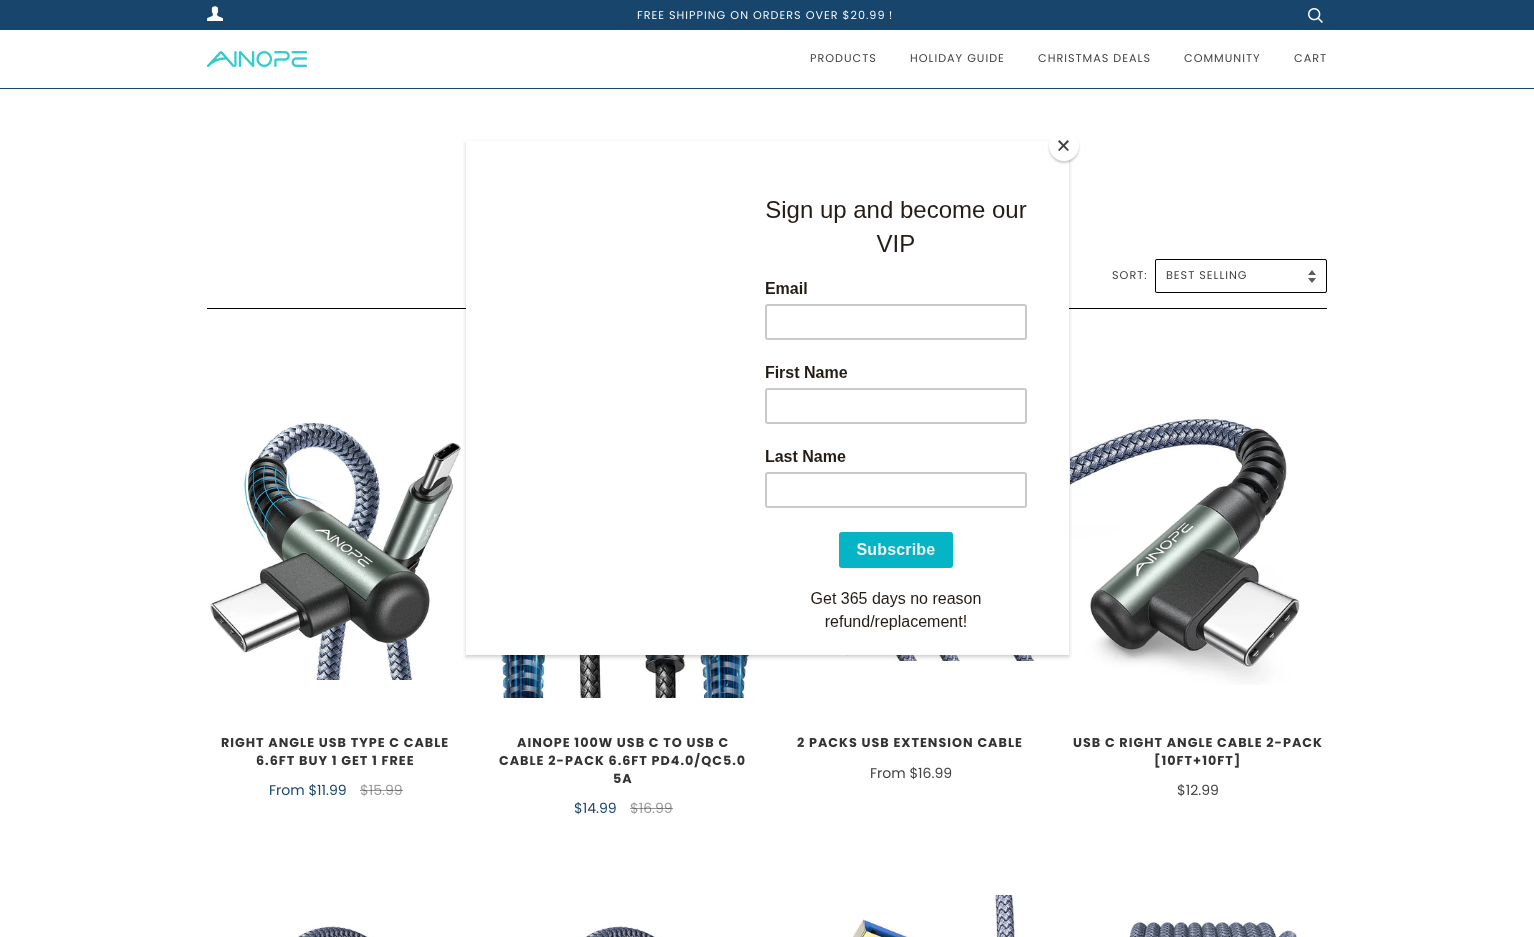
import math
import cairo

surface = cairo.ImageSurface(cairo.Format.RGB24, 1534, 937)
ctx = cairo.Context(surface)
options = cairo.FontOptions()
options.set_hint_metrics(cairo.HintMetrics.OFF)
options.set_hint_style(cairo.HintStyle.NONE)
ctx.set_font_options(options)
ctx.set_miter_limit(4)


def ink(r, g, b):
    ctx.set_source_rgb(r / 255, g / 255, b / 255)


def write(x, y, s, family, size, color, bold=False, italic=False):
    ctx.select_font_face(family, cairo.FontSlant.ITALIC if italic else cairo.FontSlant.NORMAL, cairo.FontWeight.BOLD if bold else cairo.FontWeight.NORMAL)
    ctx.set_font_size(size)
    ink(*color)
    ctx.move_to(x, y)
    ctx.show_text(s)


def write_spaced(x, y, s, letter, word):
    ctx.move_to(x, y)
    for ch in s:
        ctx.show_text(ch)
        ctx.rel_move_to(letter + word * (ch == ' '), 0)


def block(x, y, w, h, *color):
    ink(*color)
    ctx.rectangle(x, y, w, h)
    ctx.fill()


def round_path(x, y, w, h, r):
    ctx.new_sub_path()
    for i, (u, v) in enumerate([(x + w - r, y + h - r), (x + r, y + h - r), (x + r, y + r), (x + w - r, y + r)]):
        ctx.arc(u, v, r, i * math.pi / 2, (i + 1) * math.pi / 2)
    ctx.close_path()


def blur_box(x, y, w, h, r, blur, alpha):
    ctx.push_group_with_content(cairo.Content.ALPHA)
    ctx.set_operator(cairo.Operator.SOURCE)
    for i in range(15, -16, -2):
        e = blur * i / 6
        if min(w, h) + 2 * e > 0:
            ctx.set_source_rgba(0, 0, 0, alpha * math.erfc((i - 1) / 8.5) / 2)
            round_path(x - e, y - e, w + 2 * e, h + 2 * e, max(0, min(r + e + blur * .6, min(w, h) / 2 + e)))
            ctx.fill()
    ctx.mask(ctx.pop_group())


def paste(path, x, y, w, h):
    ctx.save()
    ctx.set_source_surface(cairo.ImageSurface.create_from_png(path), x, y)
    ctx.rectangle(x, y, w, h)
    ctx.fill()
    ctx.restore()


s1 = dict(family="Poppins", size=14, color=(23, 69, 107))
s2 = dict(family="Poppins", size=14, color=(153, 153, 153))
s3 = dict(family="Poppins", size=14, color=(64, 64, 64))

ink(255, 255, 255)
ctx.paint()
block(0, 0, 1534, 30, 23, 69, 107)
paste("pic1.png", 207, 6, 16, 15)
ctx.select_font_face("Poppins")
ctx.set_font_size(11.2)
ink(255, 255, 255)
write_spaced(637, 19, "FREE SHIPPING ON ORDERS OVER $20.99", 1, 0)
ctx.select_font_face("WenQuanYi Zen Hei Medium")
write_spaced(885, 19, "！", 1, 0)
paste("pic2.png", 1308, 8, 15, 15)
block(0, 88, 1534, 1, 23, 69, 107)
paste("pic3.png", 207, 51, 100, 16)
ctx.select_font_face("Poppins")
ink(64, 64, 64)
write_spaced(810, 62, "PRODUCTS", 1, 0)
write_spaced(910, 62, "HOLIDAY GUIDE", 1, 0)
write_spaced(1038, 62, "CHRISTMAS DEALS", 1, 0)
write_spaced(1184, 62, "COMMUNITY", 1, 0)
write_spaced(1294, 62, "CART", 1, 0)
block(207, 308, 1120, 1, 0, 0, 0)
paste("pic6.png", 210, 423, 251, 257)
paste("pic7.png", 495, 655, 257, 43)
paste("pic8.png", 782, 655, 258, 6)
paste("pic9.png", 1070, 417, 230, 268)
ctx.save()
ctx.set_fill_rule(cairo.FillRule.EVEN_ODD)
ctx.new_path()
ctx.move_to(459, 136)
ctx.line_to(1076, 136)
ctx.line_to(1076, 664)
ctx.line_to(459, 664)
ctx.close_path()
ctx.move_to(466, 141)
ctx.line_to(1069, 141)
ctx.line_to(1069, 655)
ctx.line_to(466, 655)
ctx.close_path()
ctx.clip()
ink(0, 0, 0)
blur_box(466, 143, 603, 514, 0, 2, 0.2)
ctx.restore()
paste("pic4.png", 466, 160, 603, 495)
ink(0, 0, 0)
blur_box(1049, 133, 30, 30, 15, 1, 0.2)
ink(255, 255, 255)
ctx.arc(1064, 146, 15, 0, 2 * math.pi)
ctx.fill()
ink(65, 65, 65)
ctx.new_path()
ctx.move_to(1067.5, 140)
ctx.line_to(1069, 141.5)
ctx.line_to(1059.5, 151)
ctx.line_to(1058, 150)
ctx.close_path()
ctx.fill()
ctx.new_path()
ctx.move_to(1058, 141.5)
ctx.line_to(1059.5, 140)
ctx.line_to(1069, 150)
ctx.line_to(1067.5, 151)
ctx.close_path()
ctx.fill()
ink(64, 64, 64)
write_spaced(1112, 279, "SORT:", 1, 0)
paste("pic5.png", 1308, 270, 8, 13)
round_path(1155.5, 259.5, 171, 33, 1.5)
ink(0, 0, 0)
ctx.set_line_width(1)
ctx.stroke()
ink(64, 64, 64)
write_spaced(1166, 279, "BEST SELLING", 1, 0)
ctx.select_font_face("Poppins", cairo.FontSlant.NORMAL, cairo.FontWeight.BOLD)
ctx.set_font_size(12.75)
ink(51, 51, 51)
write_spaced(221, 747, "RIGHT ANGLE USB TYPE C CABLE", 1, 0)
write_spaced(256, 765, "6.6FT BUY 1 GET 1 FREE", 1, 0)
write(269, 795, "From $11.99", **s1)
write(360, 795, "$15.99", **s2)
ctx.set_source_rgba(0.2, 0.2, 0.2, 0.5)
ctx.rectangle(360, 790, 43, 1)
ctx.fill()
ctx.select_font_face("Poppins", cairo.FontSlant.NORMAL, cairo.FontWeight.BOLD)
ctx.set_font_size(12.75)
ink(51, 51, 51)
write_spaced(517, 747, "AINOPE 100W USB C TO USB C", 1, 0)
write_spaced(499, 765, "CABLE 2-PACK 6.6FT PD4.0/QC5.0", 1, 0)
write_spaced(613, 783, "5A", 1, 0)
write(574, 813, "$14.99", **s1)
write(630, 813, "$16.99", **s2)
ctx.set_source_rgba(0.2, 0.2, 0.2, 0.5)
ctx.rectangle(630, 808, 43, 1)
ctx.fill()
ctx.select_font_face("Poppins", cairo.FontSlant.NORMAL, cairo.FontWeight.BOLD)
ctx.set_font_size(12.75)
ink(51, 51, 51)
write_spaced(797, 747, "2 PACKS USB EXTENSION CABLE", 1, 0)
write(870, 778, "From $16.99", **s3)
ctx.select_font_face("Poppins", cairo.FontSlant.NORMAL, cairo.FontWeight.BOLD)
ctx.set_font_size(12.75)
ink(51, 51, 51)
write_spaced(1073, 747, "USB C RIGHT ANGLE CABLE 2-PACK", 1, 0)
write_spaced(1154, 765, "[10FT+10FT]", 1, 0)
write(1177, 795, "$12.99", **s3)
paste("pic10.png", 297, 924, 72, 13)
paste("pic11.png", 584, 924, 73, 13)
paste("pic12.png", 852, 895, 165, 42)
paste("pic13.png", 1129, 920, 168, 17)
surface.write_to_png("screenshot.png")
